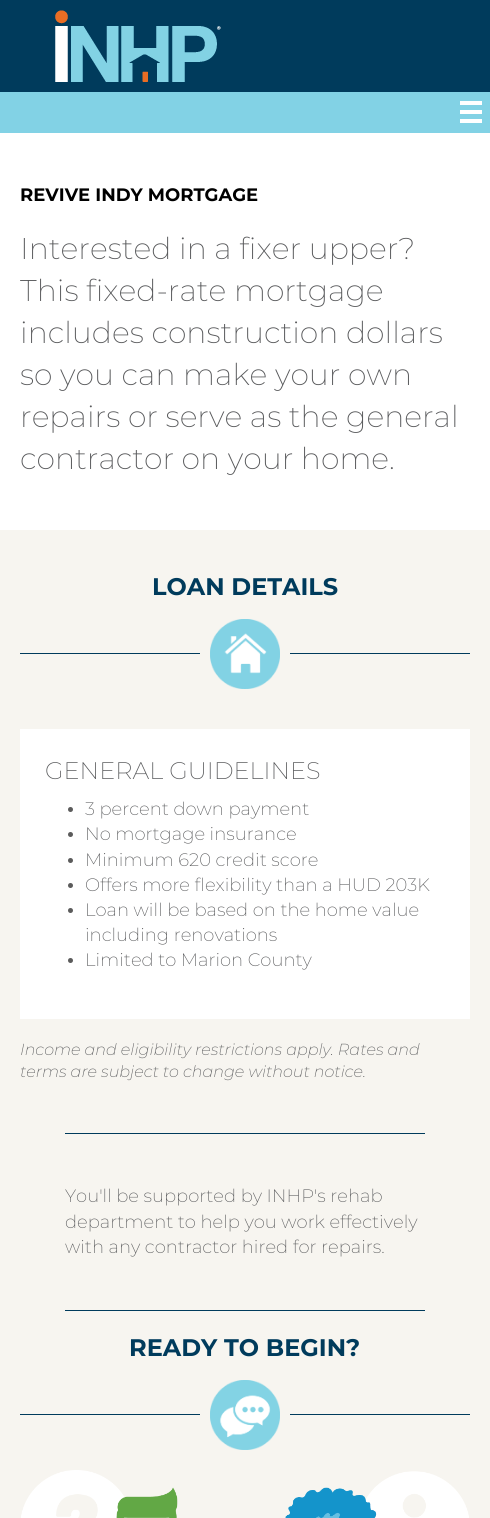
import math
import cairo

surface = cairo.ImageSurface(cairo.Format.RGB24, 490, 1518)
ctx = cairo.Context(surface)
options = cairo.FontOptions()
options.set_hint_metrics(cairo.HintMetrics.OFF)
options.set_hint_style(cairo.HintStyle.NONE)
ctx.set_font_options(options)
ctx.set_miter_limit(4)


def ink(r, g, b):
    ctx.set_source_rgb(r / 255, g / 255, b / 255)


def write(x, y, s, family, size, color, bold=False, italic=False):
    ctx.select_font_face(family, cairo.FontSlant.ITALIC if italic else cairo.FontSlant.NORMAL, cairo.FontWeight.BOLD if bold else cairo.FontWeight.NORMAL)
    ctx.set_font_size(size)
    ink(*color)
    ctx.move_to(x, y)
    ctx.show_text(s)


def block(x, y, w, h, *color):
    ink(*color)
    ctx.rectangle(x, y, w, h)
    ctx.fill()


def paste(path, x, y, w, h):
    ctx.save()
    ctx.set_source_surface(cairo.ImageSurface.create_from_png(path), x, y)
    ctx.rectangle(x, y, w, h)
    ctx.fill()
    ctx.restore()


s1 = dict(family="Montserrat", size=18, color=(0, 0, 0), bold=True)
s2 = dict(family="Montserrat ExtraLight", size=30, color=(88, 89, 91))
s3 = dict(family="Montserrat", size=24, color=(0, 59, 92), bold=True)
s4 = dict(family="Montserrat ExtraLight", size=24, color=(88, 89, 91))
s5 = dict(family="Montserrat ExtraLight", size=18, color=(88, 89, 91))
s6 = dict(family="Montserrat ExtraLight", size=16, color=(88, 89, 91), italic=True)

ink(255, 255, 255)
ctx.paint()
block(0, 0, 490, 92, 0, 59, 92)
paste("pic1.png", 55, 10, 166, 72)
block(0, 92, 490, 41, 130, 210, 229)
block(460, 101, 22, 4, 255, 255, 255)
block(460, 110, 22, 4, 255, 255, 255)
block(460, 119, 22, 4, 255, 255, 255)
write(20, 201, "REVIVE INDY MORTGAGE", **s1)
write(20, 259, "Interested in a fixer upper?", **s2)
write(20, 301, "This fixed-rate mortgage", **s2)
write(20, 343, "includes construction dollars", **s2)
write(20, 385, "so you can make your own", **s2)
write(20, 427, "repairs or serve as the general", **s2)
write(20, 469, "contractor on your home.", **s2)
block(0, 530, 490, 988, 247, 245, 240)
write(152, 595, "LOAN DETAILS", **s3)
block(20, 653, 180, 1, 0, 59, 92)
paste("pic2.png", 210, 619, 70, 70)
block(290, 653, 180, 1, 0, 59, 92)
block(20, 729, 450, 290, 255, 255, 255)
write(45, 779, "GENERAL GUIDELINES", **s4)
ink(91, 91, 91)
ctx.new_path()
ctx.arc(70.5, 809.5, 2.5, 0, 2 * math.pi)
ctx.fill()
write(85, 815, "3 percent down payment", **s5)
ink(91, 91, 91)
ctx.new_path()
ctx.arc(70.5, 834.5, 2.5, 0, 2 * math.pi)
ctx.fill()
write(85, 840, "No mortgage insurance", **s5)
ink(91, 91, 91)
ctx.new_path()
ctx.arc(70.5, 860.5, 2.5, 0, 2 * math.pi)
ctx.fill()
write(85, 866, "Minimum 620 credit score", **s5)
ink(91, 91, 91)
ctx.new_path()
ctx.arc(70.5, 885.5, 2.5, 0, 2 * math.pi)
ctx.fill()
write(85, 891, "Offers more flexibility than a HUD 203K", **s5)
ink(91, 91, 91)
ctx.new_path()
ctx.arc(70.5, 910.5, 2.5, 0, 2 * math.pi)
ctx.fill()
write(85, 916, "Loan will be based on the home value", **s5)
write(85, 941, "including renovations", **s5)
ink(91, 91, 91)
ctx.new_path()
ctx.arc(70.5, 960.5, 2.5, 0, 2 * math.pi)
ctx.fill()
write(85, 966, "Limited to Marion County", **s5)
write(20, 1055, "Income and eligibility restrictions apply. Rates and", **s6)
write(20, 1077, "terms are subject to change without notice.", **s6)
block(65, 1133, 360, 1, 0, 59, 92)
write(65, 1202, "You'll be supported by INHP's rehab", **s5)
write(65, 1228, "department to help you work effectively", **s5)
write(65, 1253, "with any contractor hired for repairs.", **s5)
block(65, 1310, 360, 1, 0, 59, 92)
write(129, 1356, "READY TO BEGIN?", **s3)
block(20, 1414, 180, 1, 0, 59, 92)
paste("pic3.png", 210, 1380, 70, 70)
block(290, 1414, 180, 1, 0, 59, 92)
paste("pic4.png", 21, 1470, 448, 48)
surface.write_to_png("screenshot.png")
